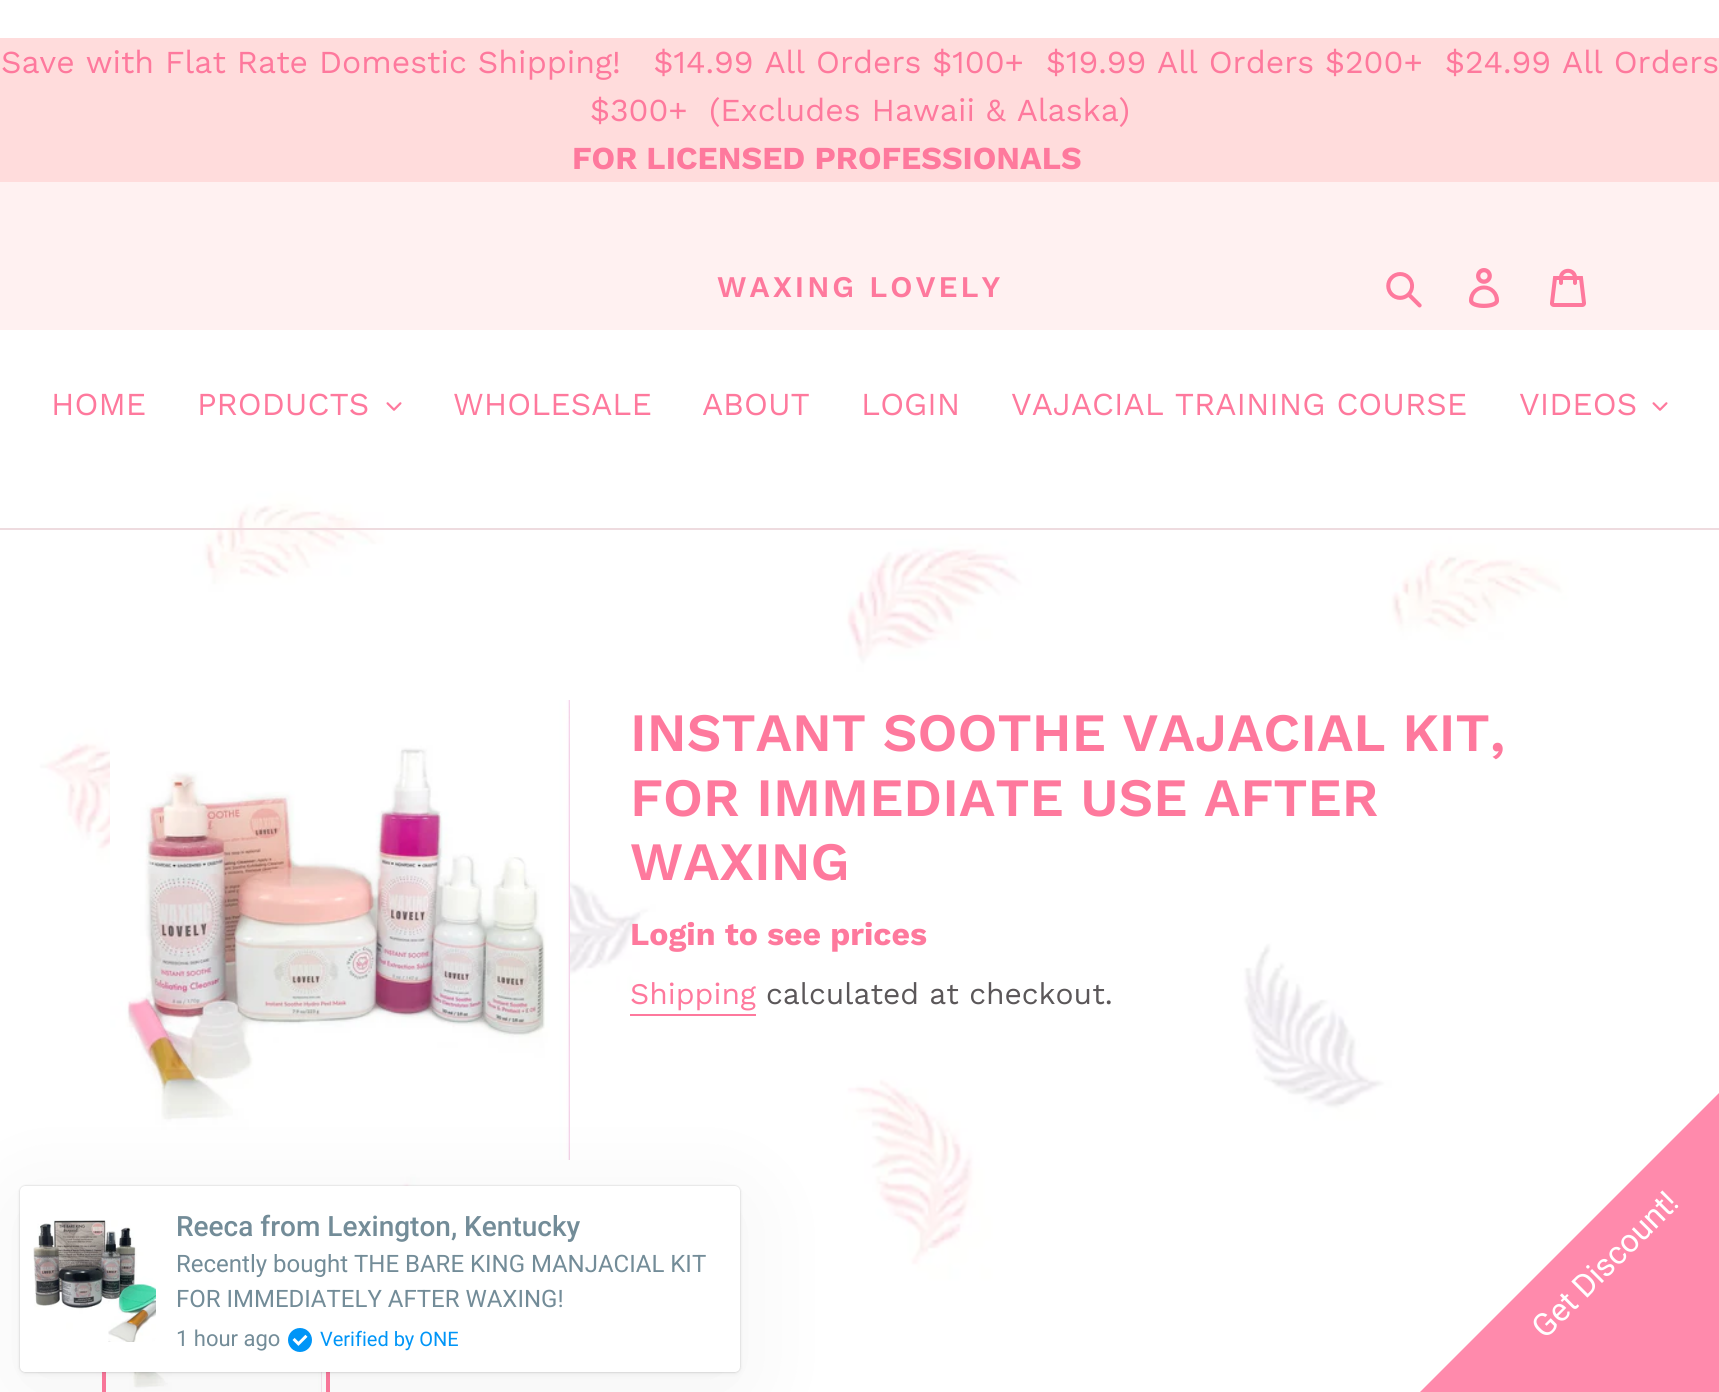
import math
import cairo

surface = cairo.ImageSurface(cairo.Format.RGB24, 1719, 1392)
ctx = cairo.Context(surface)
options = cairo.FontOptions()
options.set_hint_metrics(cairo.HintMetrics.OFF)
options.set_hint_style(cairo.HintStyle.NONE)
ctx.set_font_options(options)
ctx.set_miter_limit(4)


def ink(r, g, b):
    ctx.set_source_rgb(r / 255, g / 255, b / 255)


def write(x, y, s, family, size, color, bold=False, italic=False):
    ctx.select_font_face(family, cairo.FontSlant.ITALIC if italic else cairo.FontSlant.NORMAL, cairo.FontWeight.BOLD if bold else cairo.FontWeight.NORMAL)
    ctx.set_font_size(size)
    ink(*color)
    ctx.move_to(x, y)
    ctx.show_text(s)


def write_spaced(x, y, s, letter, word):
    ctx.move_to(x, y)
    for ch in s:
        ctx.show_text(ch)
        ctx.rel_move_to(letter + word * (ch == ' '), 0)


def block(x, y, w, h, *color):
    ink(*color)
    ctx.rectangle(x, y, w, h)
    ctx.fill()


def round_path(x, y, w, h, r):
    ctx.new_sub_path()
    for i, (u, v) in enumerate([(x + w - r, y + h - r), (x + r, y + h - r), (x + r, y + r), (x + w - r, y + r)]):
        ctx.arc(u, v, r, i * math.pi / 2, (i + 1) * math.pi / 2)
    ctx.close_path()


def blur_box(x, y, w, h, r, blur, alpha):
    ctx.push_group_with_content(cairo.Content.ALPHA)
    ctx.set_operator(cairo.Operator.SOURCE)
    for i in range(15, -16, -2):
        e = blur * i / 6
        if min(w, h) + 2 * e > 0:
            ctx.set_source_rgba(0, 0, 0, alpha * math.erfc((i - 1) / 8.5) / 2)
            round_path(x - e, y - e, w + 2 * e, h + 2 * e, max(0, min(r + e + blur * .6, min(w, h) / 2 + e)))
            ctx.fill()
    ctx.mask(ctx.pop_group())


def paste(path, x, y, w, h):
    ctx.save()
    ctx.set_source_surface(cairo.ImageSurface.create_from_png(path), x, y)
    ctx.rectangle(x, y, w, h)
    ctx.fill()
    ctx.restore()


s1 = dict(family="Work Sans", size=32, color=(254, 121, 157))
s2 = dict(family="Work Sans", size=32, color=(254, 121, 157), bold=True)
s3 = dict(family="Work Sans SemiBold", size=54, color=(254, 121, 157))
s4 = dict(family="Work Sans", size=30, color=(254, 121, 157))
s5 = dict(family="Work Sans", size=30, color=(91, 87, 89))
s6 = dict(family="Roboto Medium", size=28, color=(115, 140, 152))
s7 = dict(family="Roboto", size=24, color=(115, 140, 152))
s8 = dict(family="Roboto", size=22, color=(115, 140, 152))
s9 = dict(family="Roboto", size=20, color=(0, 149, 247))
s10 = dict(family="Roboto", size=32, color=(255, 255, 255))

ink(255, 255, 255)
ctx.paint()
paste("pic1.png", 0, 0, 1719, 1392)
block(0, 38, 1719, 144, 255, 220, 220)
write(1, 73, "Save with Flat Rate Domestic Shipping!   $14.99 All Orders $100+", **s1)
write(1046, 73, "$19.99 All Orders $200+", **s1)
write(1445, 73, "$24.99 All Orders", **s1)
write(590, 121, "$300+", **s1)
write(709, 121, "(Excludes Hawaii & Alaska)", **s1)
write(572, 169, "FOR LICENSED PROFESSIONALS", **s2)
block(0, 182, 1719, 148, 255, 241, 241)
ctx.select_font_face("Work Sans SemiBold")
ctx.set_font_size(30)
ink(254, 121, 157)
write_spaced(717, 297, "WAXING LOVELY", 3, 0)
paste("pic2.png", 1386, 272, 36, 36)
paste("pic3.png", 1469, 268, 30, 40)
paste("pic4.png", 1550, 268, 36, 39)
block(0, 528, 1719, 2, 238, 219, 223)
write(51, 415, "HOME", **s1)
write(197, 415, "PRODUCTS", **s1)
paste("pic5.png", 386, 402, 16, 9)
write(453, 415, "WHOLESALE", **s1)
write(702, 415, "ABOUT", **s1)
write(861, 415, "LOGIN", **s1)
write(1011, 415, "VAJACIAL TRAINING COURSE", **s1)
write(1519, 415, "VIDEOS", **s1)
paste("pic5.png", 1652, 402, 16, 9)
paste("pic6.png", 110, 700, 460, 460)
ctx.rectangle(104, 1188, 224, 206)
ctx.set_line_width(4)
ctx.stroke()
paste("pic7.png", 110, 1372, 212, 20)
write(630, 751, "INSTANT SOOTHE VAJACIAL KIT,", **s3)
write(630, 816, "FOR IMMEDIATE USE AFTER", **s3)
write(630, 880, "WAXING", **s3)
write(630, 945, "Login to see prices", **s2)
write(630, 1004, "Shipping", **s4)
block(630, 1014, 126, 2, 254, 121, 157)
write(766, 1004, "calculated at checkout.", **s5)
ink(0, 0, 0)
blur_box(20, 1202, 720, 186, 5, 50, 0.05)
blur_box(20, 1188, 720, 186, 5, 2, 0.05)
blur_box(20, 1186, 720, 186, 5, 1, 0.2)
ink(255, 255, 255)
round_path(20, 1186, 720, 186, 5)
ctx.fill()
paste("pic8.png", 33, 1220, 123, 122)
write(176, 1236, "Reeca from Lexington, Kentucky", **s6)
write(176, 1272, "Recently bought THE BARE KING MANJACIAL KIT", **s7)
write(176, 1307, "FOR IMMEDIATELY AFTER WAXING!", **s7)
write(176, 1346, "1 hour ago", **s8)
paste("pic9.png", 288, 1328, 24, 24)
write(320, 1346, "Verified by ONE", **s9)
ctx.set_source_rgba(1, 0.533, 0.667, 0.98)
ctx.new_path()
ctx.move_to(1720, 1392)
ctx.line_to(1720, 1092)
ctx.line_to(1420, 1392)
ctx.close_path()
ctx.fill()
ctx.save()
ctx.translate(1545, 1340)
ctx.rotate(-45 * math.pi / 180)
write(0, 0, "Get Discount!", **s10)
ctx.restore()
surface.write_to_png("screenshot.png")
